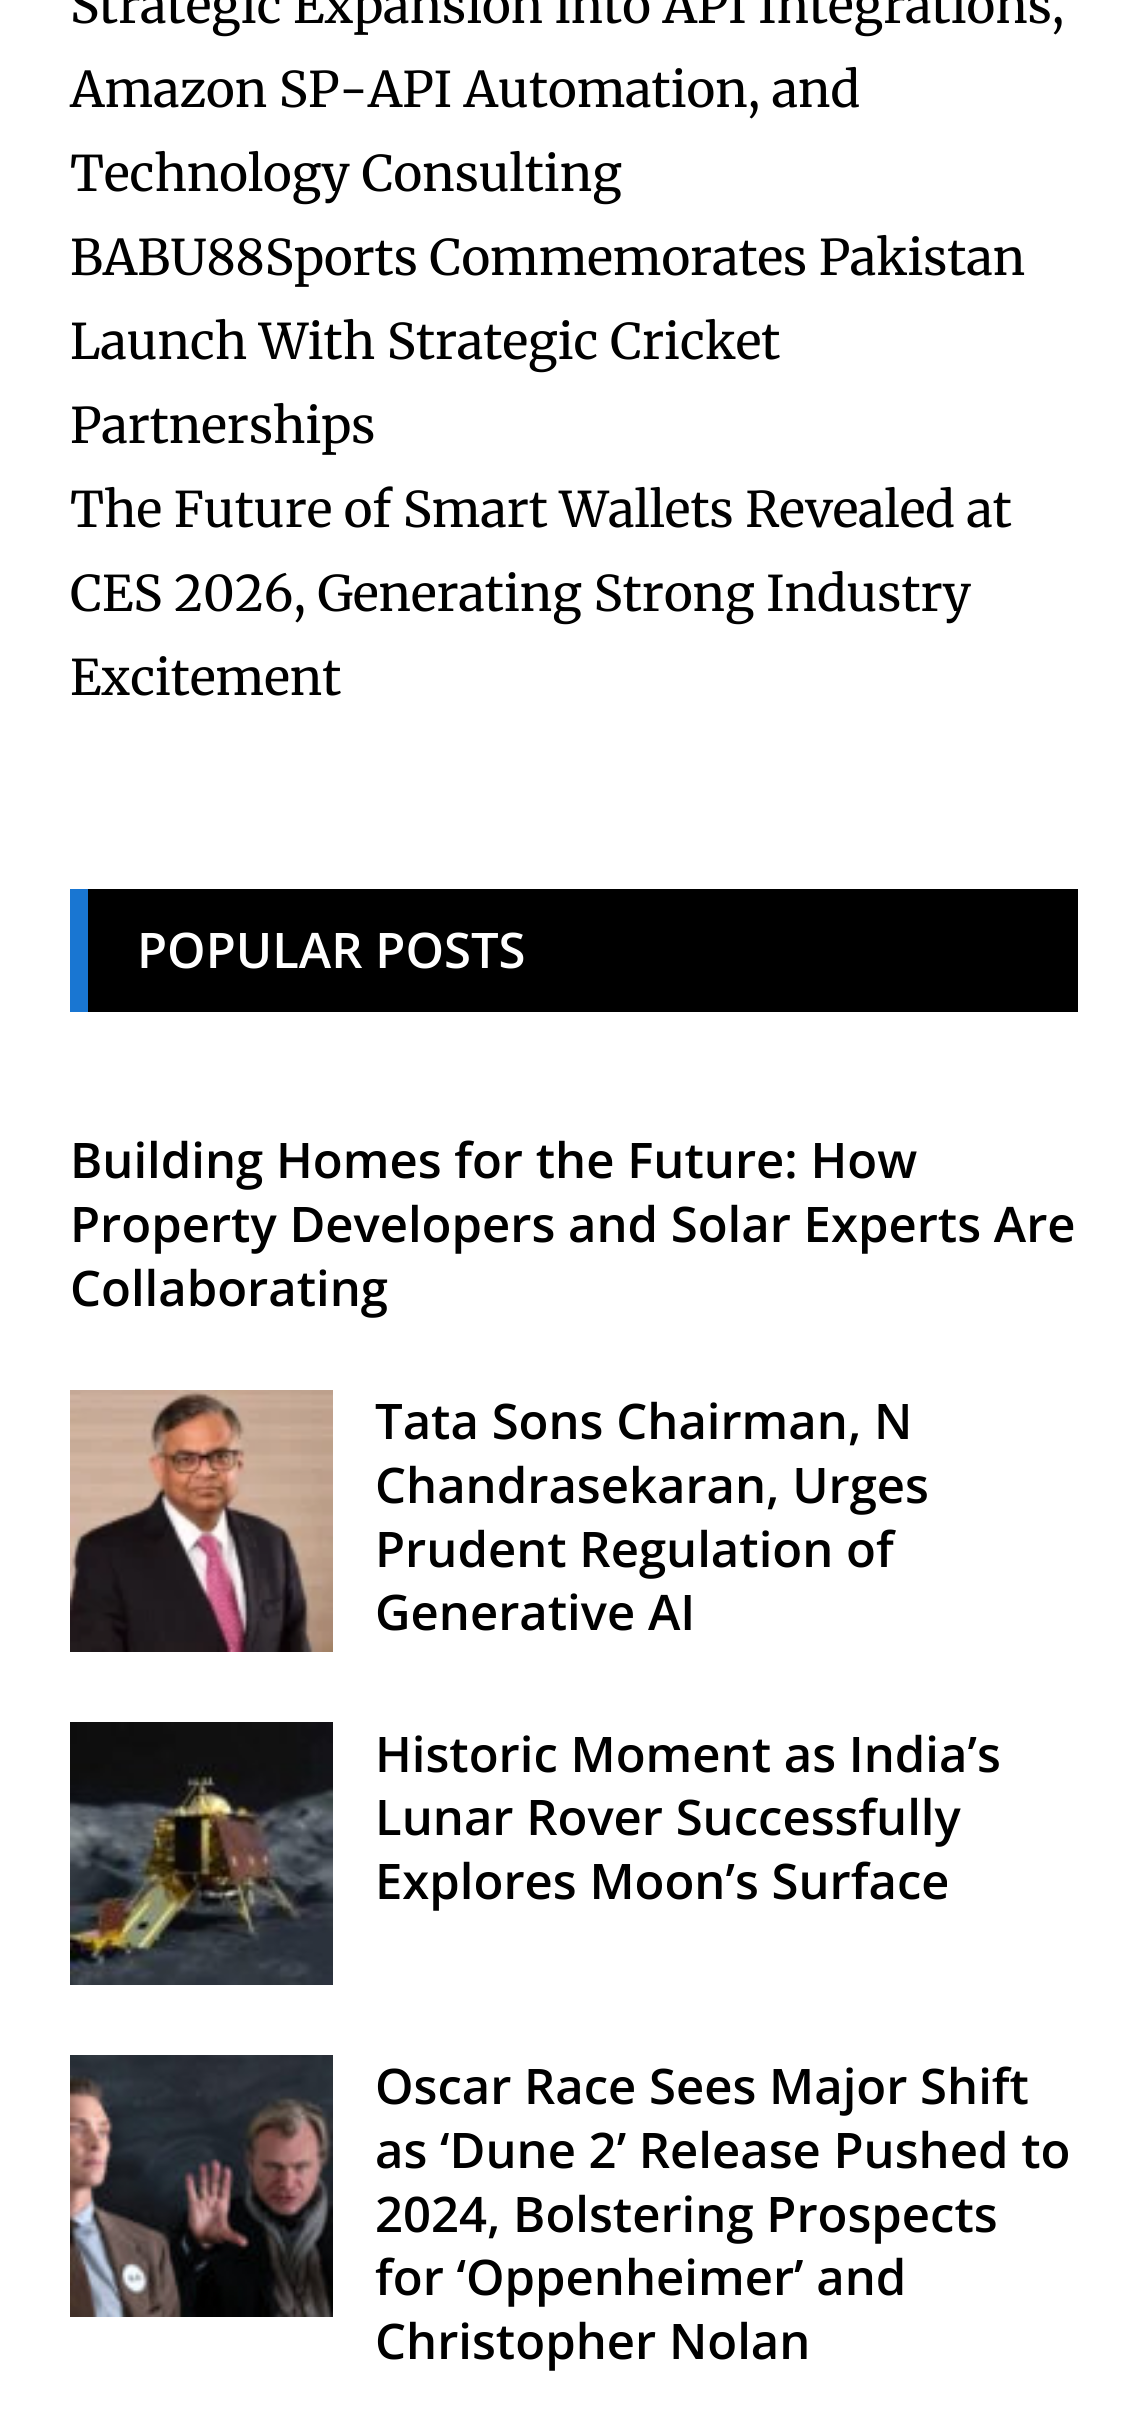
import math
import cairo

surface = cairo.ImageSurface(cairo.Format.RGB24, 1147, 2411)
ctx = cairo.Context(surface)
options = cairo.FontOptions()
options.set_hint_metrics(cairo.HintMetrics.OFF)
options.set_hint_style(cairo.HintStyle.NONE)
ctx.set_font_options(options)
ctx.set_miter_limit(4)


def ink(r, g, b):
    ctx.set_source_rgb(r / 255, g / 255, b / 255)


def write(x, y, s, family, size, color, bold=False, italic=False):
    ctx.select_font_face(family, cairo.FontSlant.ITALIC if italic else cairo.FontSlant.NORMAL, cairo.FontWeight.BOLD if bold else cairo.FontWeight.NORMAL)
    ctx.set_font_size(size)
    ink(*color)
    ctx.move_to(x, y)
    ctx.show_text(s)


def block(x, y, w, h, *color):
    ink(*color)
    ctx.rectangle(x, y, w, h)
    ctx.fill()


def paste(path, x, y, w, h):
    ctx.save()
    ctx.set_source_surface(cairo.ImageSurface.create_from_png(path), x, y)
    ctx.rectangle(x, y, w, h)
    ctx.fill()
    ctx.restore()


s1 = dict(family="Merriweather", size=49, color=(0, 0, 0))
s2 = dict(family="Open Sans SemiBold", size=49, color=(255, 255, 255))
s3 = dict(family="Open Sans SemiBold", size=49, color=(0, 0, 0))

ink(255, 255, 255)
ctx.paint()
write(70, 23, "Strategic Expansion into API Integrations,", **s1)
write(70, 107, "Amazon SP-API Automation, and", **s1)
write(70, 191, "Technology Consulting", **s1)
write(70, 275, "BABU88Sports Commemorates Pakistan", **s1)
write(70, 359, "Launch With Strategic Cricket", **s1)
write(70, 443, "Partnerships", **s1)
write(70, 527, "The Future of Smart Wallets Revealed at", **s1)
write(70, 611, "CES 2026, Generating Strong Industry", **s1)
write(70, 695, "Excitement", **s1)
block(88, 889, 990, 123, 0, 0, 0)
block(70, 889, 18, 123, 25, 118, 210)
write(137, 968, "POPULAR POSTS", **s2)
write(70, 1178, "Building Homes for the Future: How", **s3)
write(70, 1242, "Property Developers and Solar Experts Are", **s3)
write(70, 1306, "Collaborating", **s3)
paste("pic1.png", 70, 1390, 263, 262)
write(375, 1439, "Tata Sons Chairman, N", **s3)
write(375, 1503, "Chandrasekaran, Urges", **s3)
write(375, 1567, "Prudent Regulation of", **s3)
write(375, 1630, "Generative AI", **s3)
paste("pic2.png", 70, 1722, 263, 263)
write(375, 1772, "Historic Moment as India’s", **s3)
write(375, 1835, "Lunar Rover Successfully", **s3)
write(375, 1899, "Explores Moon’s Surface", **s3)
paste("pic3.png", 70, 2055, 263, 262)
write(375, 2104, "Oscar Race Sees Major Shift", **s3)
write(375, 2168, "as ‘Dune 2’ Release Pushed to", **s3)
write(375, 2232, "2024, Bolstering Prospects", **s3)
write(375, 2295, "for ‘Oppenheimer’ and", **s3)
write(375, 2359, "Christopher Nolan", **s3)
surface.write_to_png("screenshot.png")
